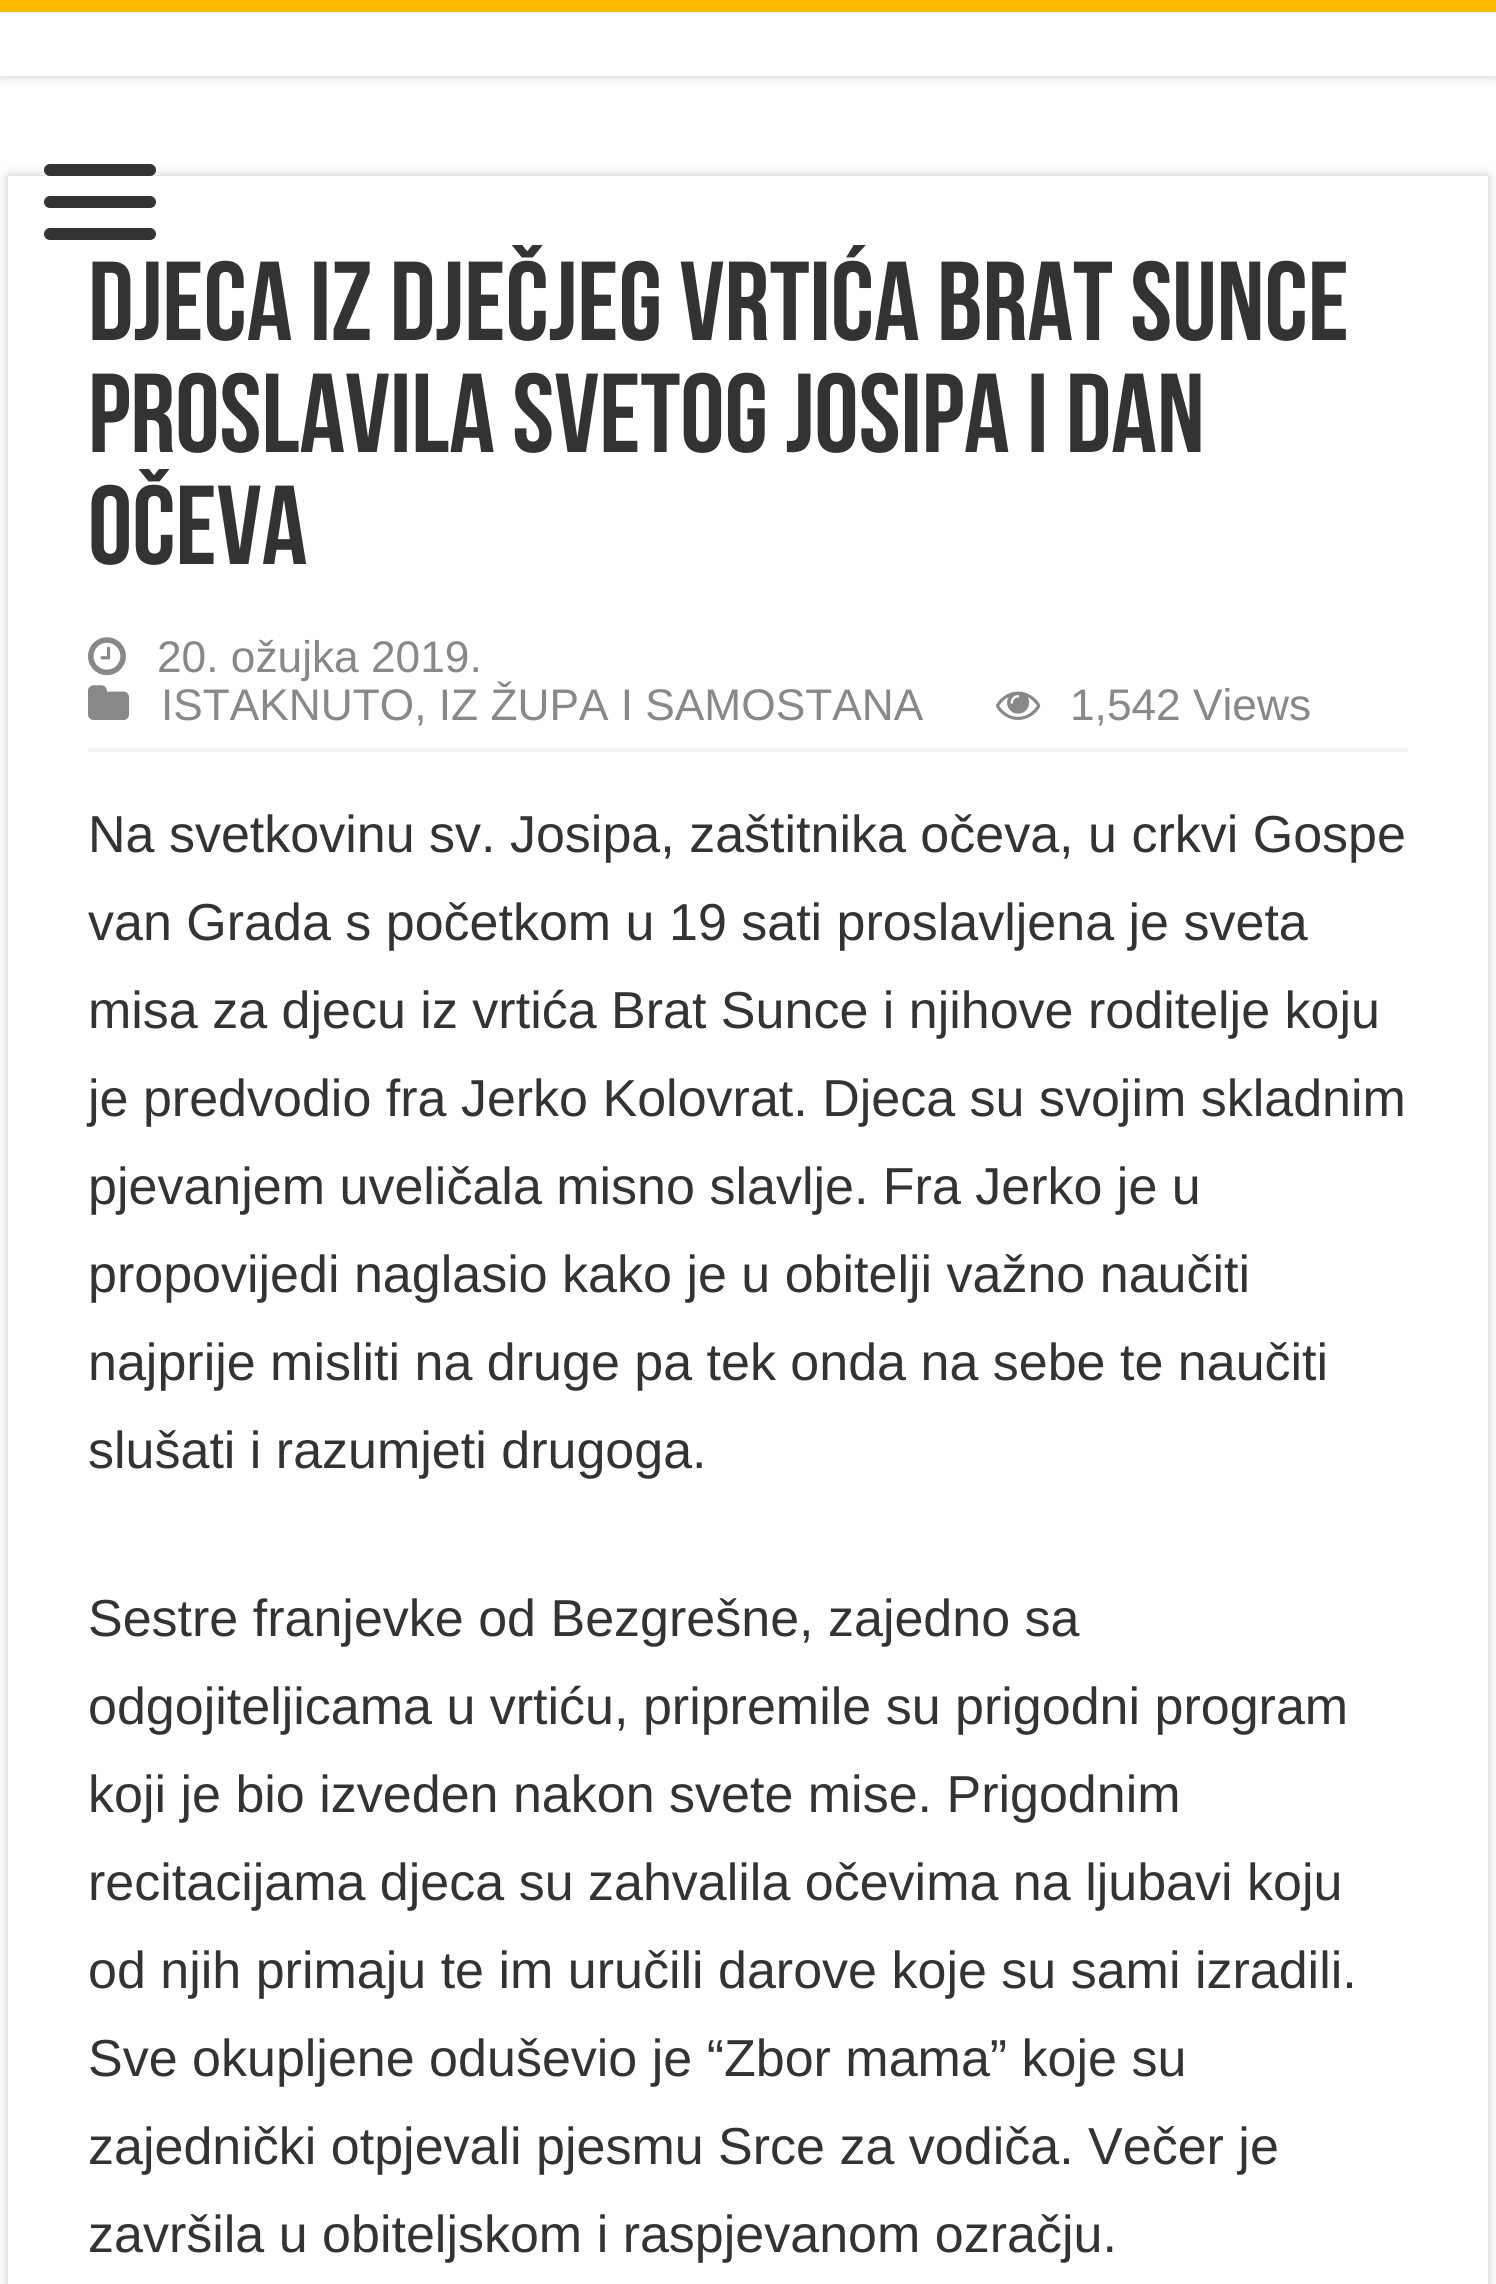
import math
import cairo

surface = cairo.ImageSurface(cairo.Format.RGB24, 1496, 2284)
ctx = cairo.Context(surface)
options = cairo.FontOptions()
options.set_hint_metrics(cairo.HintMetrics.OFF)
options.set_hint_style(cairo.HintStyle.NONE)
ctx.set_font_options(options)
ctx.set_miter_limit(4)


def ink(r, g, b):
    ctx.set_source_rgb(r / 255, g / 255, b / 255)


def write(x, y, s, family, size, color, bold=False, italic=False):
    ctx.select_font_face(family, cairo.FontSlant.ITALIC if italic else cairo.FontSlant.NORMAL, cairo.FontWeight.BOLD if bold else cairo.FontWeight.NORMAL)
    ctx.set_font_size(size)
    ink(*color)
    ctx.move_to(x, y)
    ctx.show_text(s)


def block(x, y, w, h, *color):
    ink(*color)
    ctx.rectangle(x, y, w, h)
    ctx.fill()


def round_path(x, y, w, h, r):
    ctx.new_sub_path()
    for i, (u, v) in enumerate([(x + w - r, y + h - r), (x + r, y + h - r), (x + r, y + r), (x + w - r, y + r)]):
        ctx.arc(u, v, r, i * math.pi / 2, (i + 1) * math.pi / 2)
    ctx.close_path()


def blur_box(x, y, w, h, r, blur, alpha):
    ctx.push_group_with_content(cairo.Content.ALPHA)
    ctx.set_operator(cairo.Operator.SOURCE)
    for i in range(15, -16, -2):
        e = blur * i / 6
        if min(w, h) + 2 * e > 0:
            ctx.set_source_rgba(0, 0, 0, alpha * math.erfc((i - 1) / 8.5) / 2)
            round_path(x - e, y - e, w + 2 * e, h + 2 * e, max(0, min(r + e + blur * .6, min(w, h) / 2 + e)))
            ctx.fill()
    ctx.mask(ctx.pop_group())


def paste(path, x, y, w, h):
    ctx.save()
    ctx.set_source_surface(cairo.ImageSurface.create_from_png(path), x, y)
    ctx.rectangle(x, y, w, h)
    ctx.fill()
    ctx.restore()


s1 = dict(family="Bebas Neue", size=112, color=(51, 51, 51), bold=True)
s2 = dict(family="Liberation Sans", size=44.25, color=(136, 136, 136))
s3 = dict(family="Liberation Sans", size=52, color=(51, 51, 51))

ink(255, 255, 255)
ctx.paint()
ctx.save()
ctx.rectangle(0, 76, 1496, 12)
ctx.clip()
ink(202, 202, 202)
blur_box(0, 0, 1496, 76, 0, 6, 1)
ctx.restore()
block(0, 0, 1496, 12, 255, 187, 1)
ctx.save()
ctx.set_fill_rule(cairo.FillRule.EVEN_ODD)
ctx.new_path()
ctx.move_to(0, 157)
ctx.line_to(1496, 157)
ctx.line_to(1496, 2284)
ctx.line_to(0, 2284)
ctx.close_path()
ctx.move_to(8, 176)
ctx.line_to(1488, 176)
ctx.line_to(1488, 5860)
ctx.line_to(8, 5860)
ctx.close_path()
ctx.clip()
ink(202, 202, 202)
blur_box(8, 176, 1480, 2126, 0, 6, 1)
ctx.restore()
ink(51, 51, 51)
round_path(44, 164, 112, 12, 6)
ctx.fill()
round_path(44, 196, 112, 12, 6)
ctx.fill()
round_path(44, 228, 112, 12, 6)
ctx.fill()
write(88, 340, "Djeca iz Dječjeg vrtića Brat Sunce", **s1)
write(88, 452, "proslavila svetog Josipa i Dan", **s1)
write(88, 564, "očeva", **s1)
block(88, 748, 1320, 4, 242, 242, 242)
paste("pic1.png", 88, 637, 38, 39)
write(157, 672, "20. ožujka 2019.", **s2)
paste("pic2.png", 88, 685, 42, 35)
write(161, 720, "ISTAKNUTO, IZ ŽUPA I SAMOSTANA", **s2)
paste("pic3.png", 996, 691, 45, 29)
write(1070, 720, "1,542 Views", **s2)
write(88, 852, "Na svetkovinu sv. Josipa, zaštitnika očeva, u crkvi Gospe", **s3)
write(88, 940, "van Grada s početkom u 19 sati proslavljena je sveta", **s3)
write(88, 1028, "misa za djecu iz vrtića Brat Sunce i njihove roditelje koju", **s3)
write(88, 1116, "je predvodio fra Jerko Kolovrat. Djeca su svojim skladnim", **s3)
write(88, 1204, "pjevanjem uveličala misno slavlje. Fra Jerko je u", **s3)
write(88, 1292, "propovijedi naglasio kako je u obitelji važno naučiti", **s3)
write(88, 1380, "najprije misliti na druge pa tek onda na sebe te naučiti", **s3)
write(88, 1468, "slušati i razumjeti drugoga.", **s3)
write(88, 1636, "Sestre franjevke od Bezgrešne, zajedno sa", **s3)
write(88, 1724, "odgojiteljicama u vrtiću, pripremile su prigodni program", **s3)
write(88, 1812, "koji je bio izveden nakon svete mise. Prigodnim", **s3)
write(88, 1900, "recitacijama djeca su zahvalila očevima na ljubavi koju", **s3)
write(88, 1988, "od njih primaju te im uručili darove koje su sami izradili.", **s3)
write(88, 2076, "Sve okupljene oduševio je “Zbor mama” koje su", **s3)
write(88, 2164, "zajednički otpjevali pjesmu Srce za vodiča. Večer je", **s3)
write(88, 2252, "završila u obiteljskom i raspjevanom ozračju.", **s3)
surface.write_to_png("screenshot.png")
